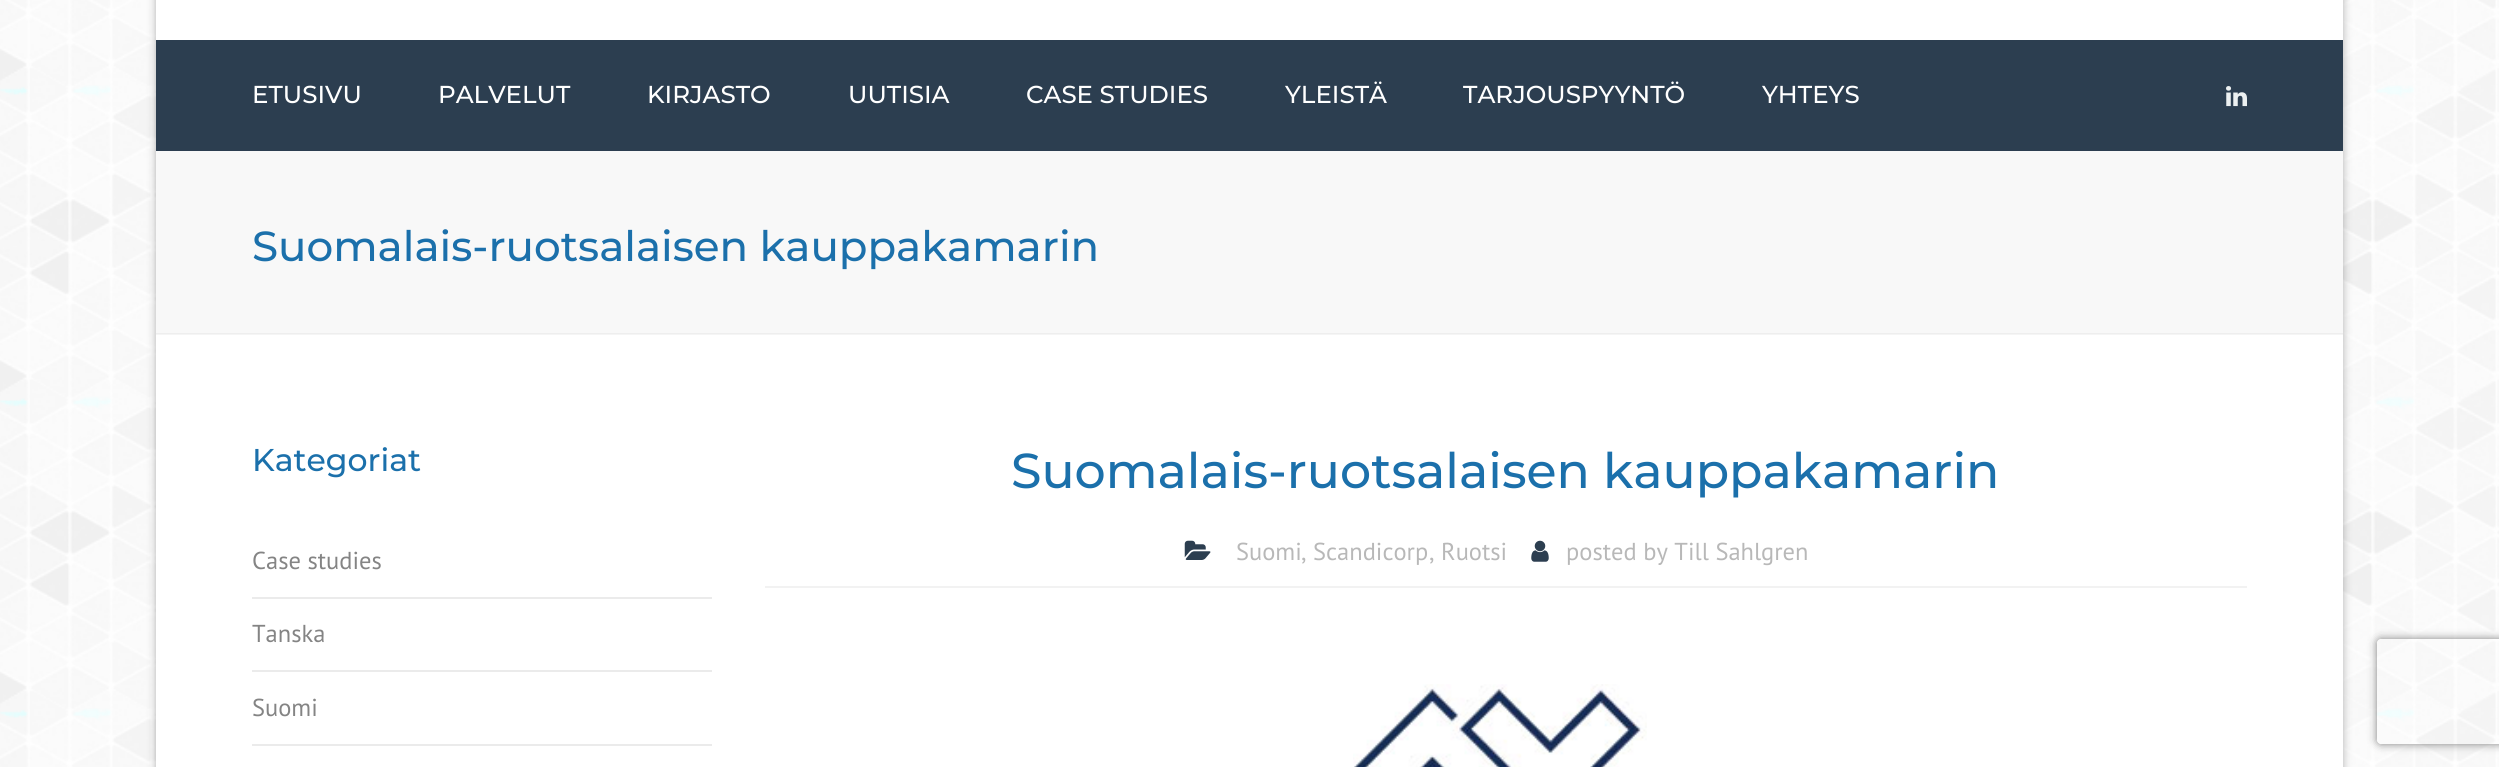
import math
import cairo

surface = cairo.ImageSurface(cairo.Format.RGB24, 2499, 767)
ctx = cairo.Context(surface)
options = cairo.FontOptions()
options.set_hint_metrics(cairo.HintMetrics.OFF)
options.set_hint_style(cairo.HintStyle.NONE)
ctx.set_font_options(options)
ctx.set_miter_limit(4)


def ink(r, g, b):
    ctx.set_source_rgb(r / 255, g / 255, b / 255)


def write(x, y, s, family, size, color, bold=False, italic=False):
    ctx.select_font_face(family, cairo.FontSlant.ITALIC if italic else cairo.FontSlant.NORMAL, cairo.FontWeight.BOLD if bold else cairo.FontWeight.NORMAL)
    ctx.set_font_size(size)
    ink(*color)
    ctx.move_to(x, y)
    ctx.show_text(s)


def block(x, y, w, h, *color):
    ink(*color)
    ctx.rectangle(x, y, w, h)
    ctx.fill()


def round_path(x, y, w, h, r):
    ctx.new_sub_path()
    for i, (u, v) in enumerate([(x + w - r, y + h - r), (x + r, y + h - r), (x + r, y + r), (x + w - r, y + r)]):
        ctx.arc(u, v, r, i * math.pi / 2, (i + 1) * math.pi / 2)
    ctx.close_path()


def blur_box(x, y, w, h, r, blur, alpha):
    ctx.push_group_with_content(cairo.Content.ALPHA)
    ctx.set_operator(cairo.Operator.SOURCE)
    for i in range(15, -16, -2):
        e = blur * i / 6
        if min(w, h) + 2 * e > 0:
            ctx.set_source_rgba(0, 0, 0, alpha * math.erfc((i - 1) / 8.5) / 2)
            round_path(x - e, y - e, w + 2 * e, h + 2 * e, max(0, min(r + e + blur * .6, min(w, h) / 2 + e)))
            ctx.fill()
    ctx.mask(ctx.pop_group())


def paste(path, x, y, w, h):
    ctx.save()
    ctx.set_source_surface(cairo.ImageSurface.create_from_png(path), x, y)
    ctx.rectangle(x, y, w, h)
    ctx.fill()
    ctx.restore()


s1 = dict(family="Montserrat Medium", size=24.5, color=(255, 255, 255))
s2 = dict(family="Montserrat Medium", size=42, color=(27, 112, 171))
s3 = dict(family="Montserrat Medium", size=31.5, color=(27, 112, 171))
s4 = dict(family="PT Sans", size=24.5, color=(132, 132, 132))
s5 = dict(family="Montserrat Medium", size=49, color=(27, 112, 171))
s6 = dict(family="PT Sans", size=24.5, color=(184, 184, 184))

ink(255, 255, 255)
ctx.paint()
paste("pic1.png", 0, 0, 2499, 767)
ink(0, 0, 0)
blur_box(156, -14, 2187, 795, 0, 4.5, 0.3)
block(156, 0, 2187, 767, 255, 255, 255)
block(156, 40, 2187, 111, 44, 62, 80)
write(252, 103, "ETUSIVU", **s1)
write(438, 103, "PALVELUT", **s1)
write(647, 103, "KIRJASTO", **s1)
write(848, 103, "UUTISIA", **s1)
write(1026, 103, "CASE STUDIES", **s1)
write(1285, 103, "YLEISTÄ", **s1)
write(1463, 103, "TARJOUSPYYNTÖ", **s1)
write(1762, 103, "YHTEYS", **s1)
paste("pic2.png", 2226, 86, 21, 21)
block(156, 151, 2187, 183, 248, 248, 248)
ctx.set_source_rgba(0, 0, 0, 0.04)
ctx.rectangle(156, 333, 2187, 2)
ctx.fill()
write(252, 261, "Suomalais-ruotsalaisen kauppakamarin", **s2)
write(252, 471, "Kategoriat", **s3)
block(252, 597, 460, 2, 235, 235, 235)
write(252, 569, "Case studies", **s4)
block(252, 670, 460, 2, 235, 235, 235)
write(252, 642, "Tanska", **s4)
block(252, 744, 460, 2, 235, 235, 235)
write(252, 716, "Suomi", **s4)
write(1011, 488, "Suomalais-ruotsalaisen kauppakamarin", **s5)
paste("pic3.png", 1184, 540, 27, 20)
write(1236, 560, "Suomi", **s6)
write(1301, 560, ", Scandicorp", **s6)
write(1429, 560, ", Ruotsi", **s6)
paste("pic4.png", 1531, 540, 18, 22)
write(1566, 560, "posted by Till Sahlgren", **s6)
block(765, 586, 1482, 2, 242, 242, 242)
paste("pic5.png", 1353, 684, 294, 83)
ctx.save()
ctx.set_fill_rule(cairo.FillRule.EVEN_ODD)
ctx.new_path()
ctx.move_to(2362, 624)
ctx.line_to(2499, 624)
ctx.line_to(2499, 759)
ctx.line_to(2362, 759)
ctx.close_path()
ctx.move_to(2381, 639)
ctx.line_to(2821, 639)
ctx.curve_to(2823, 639, 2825, 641, 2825, 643)
ctx.line_to(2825, 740)
ctx.curve_to(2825, 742, 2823, 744, 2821, 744)
ctx.line_to(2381, 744)
ctx.curve_to(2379, 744, 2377, 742, 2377, 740)
ctx.line_to(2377, 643)
ctx.curve_to(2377, 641, 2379, 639, 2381, 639)
ctx.close_path()
ctx.clip()
ink(128, 128, 128)
blur_box(2377, 639, 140, 105, 4, 4.5, 1)
ctx.restore()
surface.write_to_png("screenshot.png")
